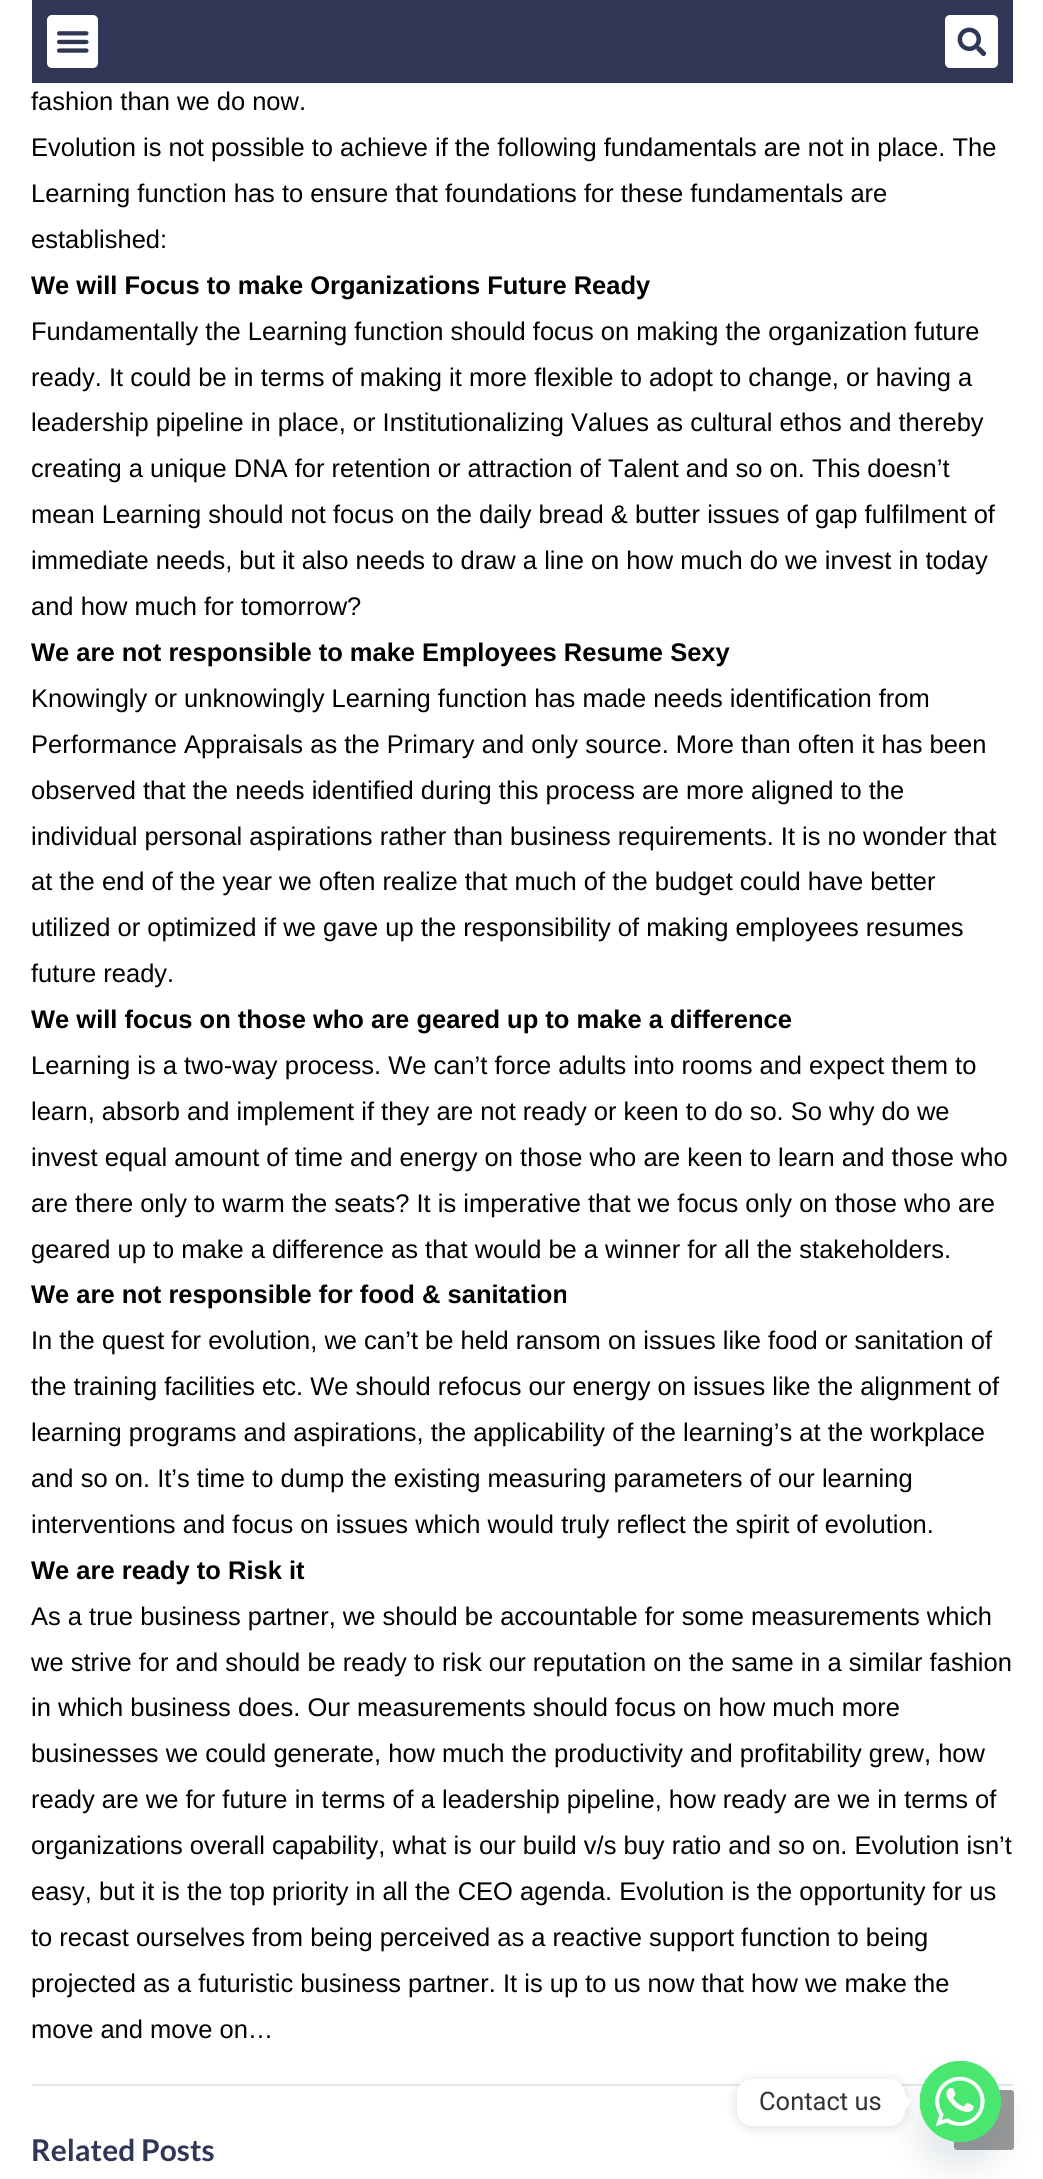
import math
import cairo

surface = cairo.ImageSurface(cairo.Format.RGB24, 1043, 2179)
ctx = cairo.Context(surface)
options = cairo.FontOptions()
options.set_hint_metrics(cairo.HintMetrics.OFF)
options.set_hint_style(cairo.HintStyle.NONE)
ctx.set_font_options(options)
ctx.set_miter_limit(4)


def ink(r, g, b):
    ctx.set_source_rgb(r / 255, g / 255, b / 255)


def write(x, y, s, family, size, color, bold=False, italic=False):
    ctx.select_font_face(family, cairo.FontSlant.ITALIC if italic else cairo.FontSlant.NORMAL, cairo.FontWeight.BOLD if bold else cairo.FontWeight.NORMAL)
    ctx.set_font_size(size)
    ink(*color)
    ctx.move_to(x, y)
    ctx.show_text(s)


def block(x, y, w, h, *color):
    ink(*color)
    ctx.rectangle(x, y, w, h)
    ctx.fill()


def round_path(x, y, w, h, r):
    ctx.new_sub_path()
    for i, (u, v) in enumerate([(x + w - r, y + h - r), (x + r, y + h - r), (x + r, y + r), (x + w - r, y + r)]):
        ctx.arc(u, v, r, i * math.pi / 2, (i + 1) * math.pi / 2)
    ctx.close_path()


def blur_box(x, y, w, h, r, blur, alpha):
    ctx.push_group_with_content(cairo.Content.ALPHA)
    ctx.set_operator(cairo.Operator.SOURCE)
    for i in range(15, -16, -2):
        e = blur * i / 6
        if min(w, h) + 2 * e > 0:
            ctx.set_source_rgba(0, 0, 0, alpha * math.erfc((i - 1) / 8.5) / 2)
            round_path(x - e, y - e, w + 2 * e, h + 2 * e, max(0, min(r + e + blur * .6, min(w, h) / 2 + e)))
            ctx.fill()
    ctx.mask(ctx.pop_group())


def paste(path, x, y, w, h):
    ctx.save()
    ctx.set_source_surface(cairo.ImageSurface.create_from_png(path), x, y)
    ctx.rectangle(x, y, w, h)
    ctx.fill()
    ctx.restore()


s1 = dict(family="Liberation Sans", size=25.5, color=(0, 0, 0))
s2 = dict(family="Liberation Sans", size=25.5, color=(0, 0, 0), bold=True)
s3 = dict(family="Lato", size=30, color=(48, 54, 85), bold=True)
s4 = dict(family="Roboto", size=25.5, color=(51, 51, 51))

ink(255, 255, 255)
ctx.paint()
block(32, 0, 981, 83, 48, 54, 85)
ink(255, 255, 255)
round_path(47, 15, 51, 53, 5)
ctx.fill()
paste("pic1.png", 57, 31, 32, 22)
round_path(945, 15, 53, 53, 5)
ctx.fill()
paste("pic2.png", 957, 27, 29, 29)
block(32, 2084, 981, 2, 223, 233, 235)
write(31, 110, "fashion than we do now.", **s1)
write(31, 156, "Evolution is not possible to achieve if the following fundamentals are not in place. The", **s1)
write(31, 202, "Learning function has to ensure that foundations for these fundamentals are", **s1)
write(31, 248, "established:", **s1)
write(31, 294, "We will Focus to make Organizations Future Ready", **s2)
write(31, 340, "Fundamentally the Learning function should focus on making the organization future", **s1)
write(31, 386, "ready. It could be in terms of making it more flexible to adopt to change, or having a", **s1)
write(31, 431, "leadership pipeline in place, or Institutionalizing Values as cultural ethos and thereby", **s1)
write(31, 477, "creating a unique DNA for retention or attraction of Talent and so on. This doesn’t", **s1)
write(31, 523, "mean Learning should not focus on the daily bread & butter issues of gap fulfilment of", **s1)
write(31, 569, "immediate needs, but it also needs to draw a line on how much do we invest in today", **s1)
write(31, 615, "and how much for tomorrow?", **s1)
write(31, 661, "We are not responsible to make Employees Resume Sexy", **s2)
write(31, 707, "Knowingly or unknowingly Learning function has made needs identification from", **s1)
write(31, 753, "Performance Appraisals as the Primary and only source. More than often it has been", **s1)
write(31, 799, "observed that the needs identified during this process are more aligned to the", **s1)
write(31, 845, "individual personal aspirations rather than business requirements. It is no wonder that", **s1)
write(31, 890, "at the end of the year we often realize that much of the budget could have better", **s1)
write(31, 936, "utilized or optimized if we gave up the responsibility of making employees resumes", **s1)
write(31, 982, "future ready.", **s1)
write(31, 1028, "We will focus on those who are geared up to make a difference", **s2)
write(31, 1074, "Learning is a two-way process. We can’t force adults into rooms and expect them to", **s1)
write(31, 1120, "learn, absorb and implement if they are not ready or keen to do so. So why do we", **s1)
write(31, 1166, "invest equal amount of time and energy on those who are keen to learn and those who", **s1)
write(31, 1212, "are there only to warm the seats? It is imperative that we focus only on those who are", **s1)
write(31, 1258, "geared up to make a difference as that would be a winner for all the stakeholders.", **s1)
write(31, 1303, "We are not responsible for food & sanitation", **s2)
write(31, 1349, "In the quest for evolution, we can’t be held ransom on issues like food or sanitation of", **s1)
write(31, 1395, "the training facilities etc. We should refocus our energy on issues like the alignment of", **s1)
write(31, 1441, "learning programs and aspirations, the applicability of the learning’s at the workplace", **s1)
write(31, 1487, "and so on. It’s time to dump the existing measuring parameters of our learning", **s1)
write(31, 1533, "interventions and focus on issues which would truly reflect the spirit of evolution.", **s1)
write(31, 1579, "We are ready to Risk it", **s2)
write(31, 1625, "As a true business partner, we should be accountable for some measurements which", **s1)
write(31, 1671, "we strive for and should be ready to risk our reputation on the same in a similar fashion", **s1)
write(31, 1716, "in which business does. Our measurements should focus on how much more", **s1)
write(31, 1762, "businesses we could generate, how much the productivity and profitability grew, how", **s1)
write(31, 1808, "ready are we for future in terms of a leadership pipeline, how ready are we in terms of", **s1)
write(31, 1854, "organizations overall capability, what is our build v/s buy ratio and so on. Evolution isn’t", **s1)
write(31, 1900, "easy, but it is the top priority in all the CEO agenda. Evolution is the opportunity for us", **s1)
write(31, 1946, "to recast ourselves from being perceived as a reactive support function to being", **s1)
write(31, 1992, "projected as a futuristic business partner. It is up to us now that how we make the", **s1)
write(31, 2038, "move and move on…", **s1)
write(31, 2161, "Related Posts", **s3)
ink(153, 153, 153)
round_path(954, 2090, 60, 60, 3)
ctx.fill()
ink(73, 104, 126)
blur_box(920, 2085, 81, 81, 40.5, 18, 0.16)
ink(73, 230, 112)
ctx.arc(960.5, 2101.5, 40.5, 0, 2 * math.pi)
ctx.fill()
paste("pic3.png", 920, 2061, 81, 81)
ink(0, 0, 0)
blur_box(737, 2081, 168, 46, 15, 6, 0.15)
ink(255, 255, 255)
round_path(737, 2079, 168, 47, 15)
ctx.fill()
write(759, 2110, "Contact us", **s4)
ink(255, 255, 255)
ctx.new_path()
ctx.move_to(904.5, 2110)
ctx.line_to(904.5, 2095)
ctx.line_to(912, 2102)
ctx.close_path()
ctx.fill()
surface.write_to_png("screenshot.png")
